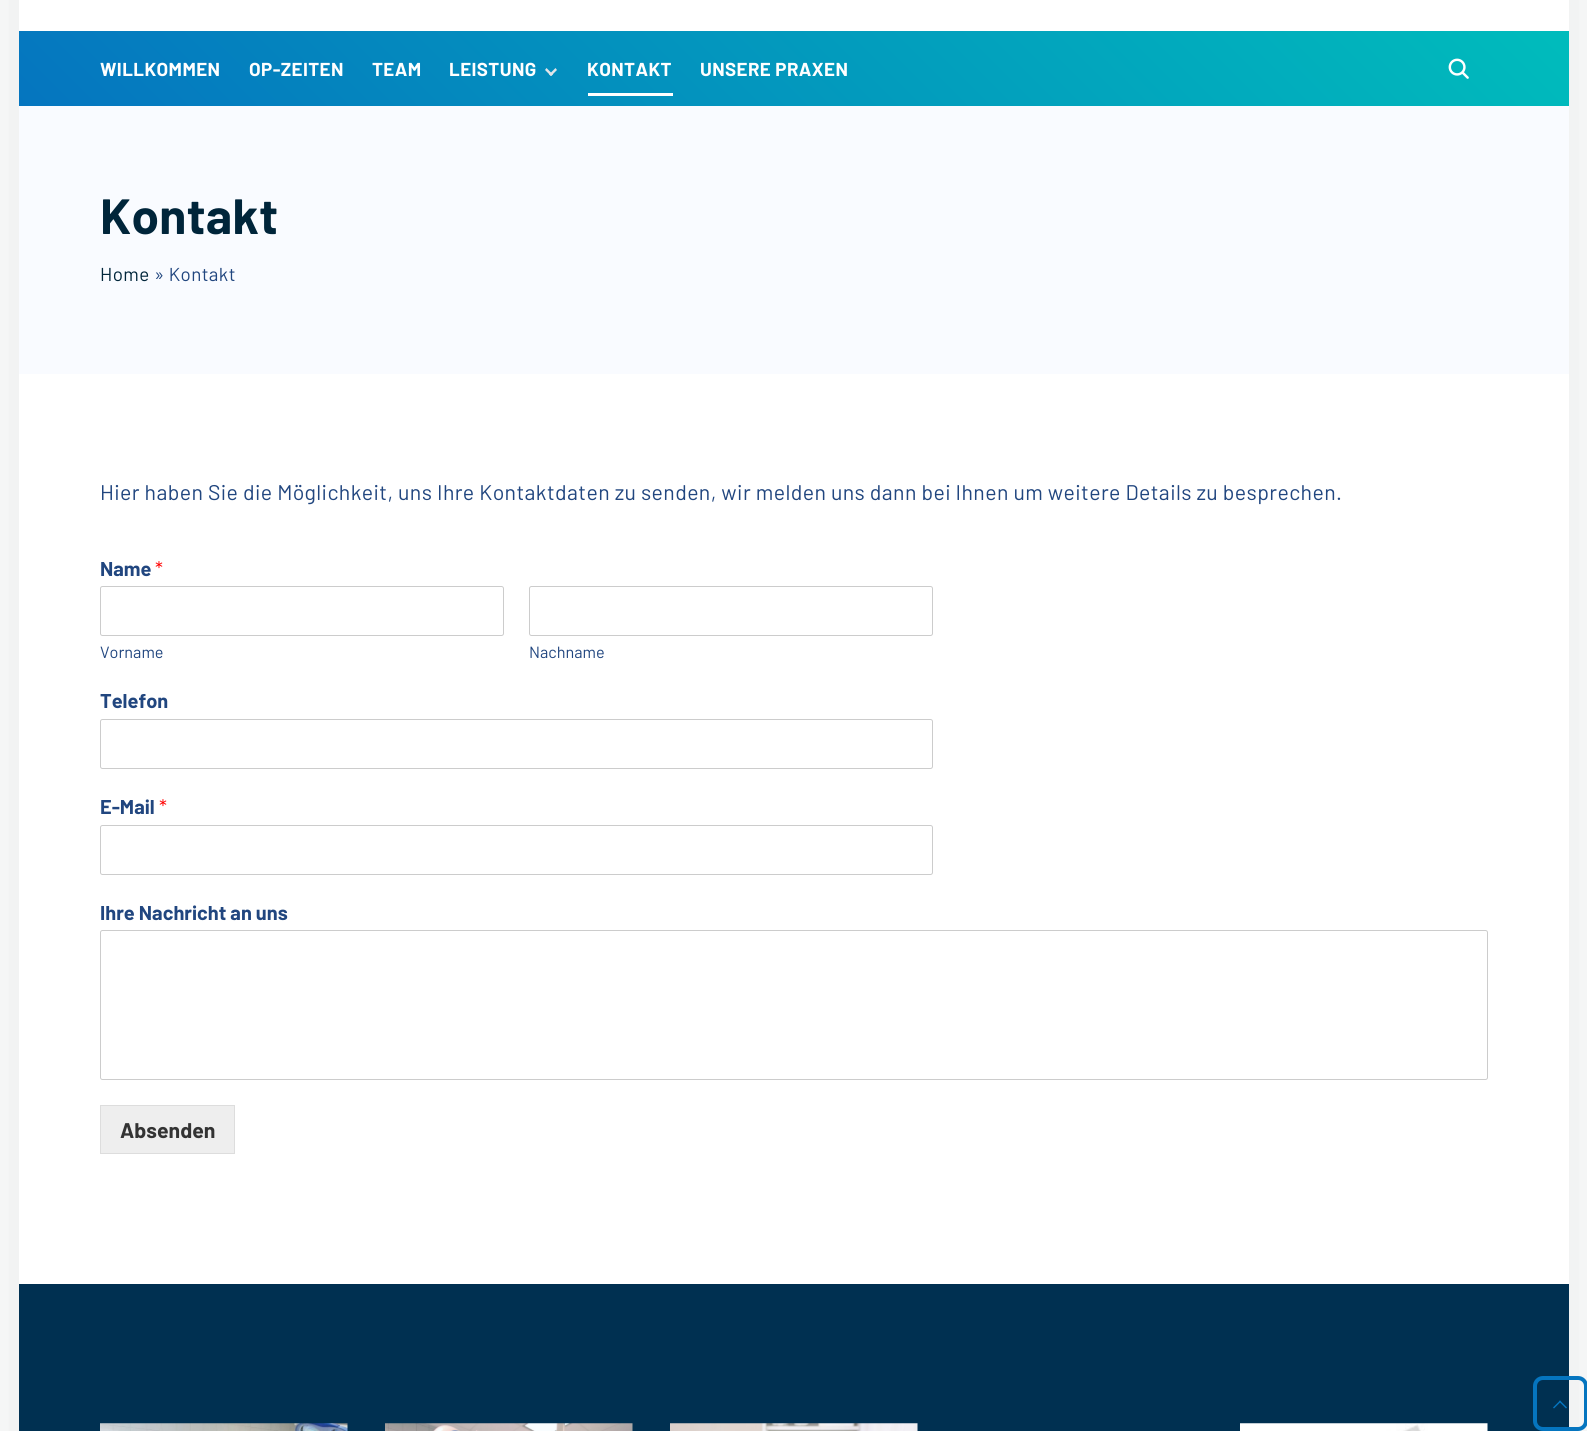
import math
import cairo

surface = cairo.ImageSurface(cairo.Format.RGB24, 1587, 1431)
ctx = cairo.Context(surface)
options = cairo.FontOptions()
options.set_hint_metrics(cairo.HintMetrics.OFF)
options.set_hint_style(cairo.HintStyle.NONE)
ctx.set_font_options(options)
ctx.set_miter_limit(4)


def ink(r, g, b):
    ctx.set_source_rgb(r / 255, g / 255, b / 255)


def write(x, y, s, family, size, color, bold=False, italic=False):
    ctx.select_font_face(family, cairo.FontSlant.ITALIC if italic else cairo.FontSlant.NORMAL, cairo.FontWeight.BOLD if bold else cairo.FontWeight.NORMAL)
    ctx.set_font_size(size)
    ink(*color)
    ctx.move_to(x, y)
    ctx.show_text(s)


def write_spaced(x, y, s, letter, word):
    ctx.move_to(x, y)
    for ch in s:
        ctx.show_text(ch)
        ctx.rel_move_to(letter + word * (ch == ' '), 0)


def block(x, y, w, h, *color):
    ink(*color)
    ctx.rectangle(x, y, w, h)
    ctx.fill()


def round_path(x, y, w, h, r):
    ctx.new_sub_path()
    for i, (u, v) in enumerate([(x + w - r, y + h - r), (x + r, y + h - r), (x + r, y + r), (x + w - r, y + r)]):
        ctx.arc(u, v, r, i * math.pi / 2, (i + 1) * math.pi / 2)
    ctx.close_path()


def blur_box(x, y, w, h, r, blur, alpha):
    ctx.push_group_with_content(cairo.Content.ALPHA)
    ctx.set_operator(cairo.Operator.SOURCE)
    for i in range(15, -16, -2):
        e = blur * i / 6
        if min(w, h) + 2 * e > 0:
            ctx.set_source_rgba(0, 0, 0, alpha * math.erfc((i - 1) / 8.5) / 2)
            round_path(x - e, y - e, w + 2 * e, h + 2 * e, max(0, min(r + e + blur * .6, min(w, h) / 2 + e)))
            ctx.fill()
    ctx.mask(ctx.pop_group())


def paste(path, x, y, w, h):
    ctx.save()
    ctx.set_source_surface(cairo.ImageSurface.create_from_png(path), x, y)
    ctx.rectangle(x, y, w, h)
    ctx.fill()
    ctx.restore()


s1 = dict(family="Barlow", size=20, color=(33, 70, 127), bold=True)
s2 = dict(family="Barlow", size=20, color=(255, 0, 0))
s3 = dict(family="Barlow", size=16.25, color=(33, 70, 127))
s4 = dict(family="Barlow", size=21.25, color=(51, 51, 51), bold=True)

ink(254, 255, 255)
ctx.paint()
ink(100, 100, 100)
blur_box(19, -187, 1550, 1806, 0, 62.5, 0.15)
block(19, 0, 1550, 1284, 255, 255, 255)
gradient = cairo.LinearGradient(388, 475, 1200, -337)
gradient.add_color_stop_rgba(0, 0.02, 0.459, 0.749, 1)
gradient.add_color_stop_rgba(1, 0, 0.737, 0.737, 1)
ctx.set_source(gradient)
ctx.rectangle(19, 31, 1550, 75)
ctx.fill()
ctx.select_font_face("Barlow", cairo.FontSlant.NORMAL, cairo.FontWeight.BOLD)
ctx.set_font_size(18.75)
ink(255, 255, 255)
write_spaced(100, 76, "WILLKOMMEN", 0.4, 0)
write_spaced(249, 76, "OP-ZEITEN", 0.4, 0)
write_spaced(372, 76, "TEAM", 0.4, 0)
write_spaced(449, 76, "LEISTUNG", 0.4, 0)
ink(227, 228, 232)
ctx.new_path()
ctx.move_to(557, 70)
ctx.line_to(551, 76)
ctx.line_to(549, 74.5)
ctx.line_to(555.5, 68)
ctx.close_path()
ctx.fill()
ctx.new_path()
ctx.move_to(553, 74.5)
ctx.line_to(551, 76)
ctx.line_to(545, 70)
ctx.line_to(546.5, 68)
ctx.close_path()
ctx.fill()
ink(255, 255, 255)
write_spaced(587, 76, "KONTAKT", 0.4, 0)
block(588, 93, 85, 3, 255, 255, 255)
write_spaced(700, 76, "UNSERE PRAXEN", 0.4, 0)
paste("pic1.png", 1448, 58, 21, 21)
block(19, 106, 1550, 268, 249, 251, 255)
ctx.set_font_size(49.5)
ink(0, 37, 58)
write_spaced(100, 234, "Kontakt", 0.4, 0)
ctx.select_font_face("Barlow")
ctx.set_font_size(18.75)
write_spaced(100, 281, "Home", 0.4, 0)
ink(33, 70, 127)
write_spaced(154, 281, "» Kontakt", 0.4, 0)
ctx.set_font_size(21.25)
write_spaced(100, 500, "Hier haben Sie die Möglichkeit, uns Ihre Kontaktdaten zu senden, wir melden uns dann bei Ihnen um weitere Details zu besprechen.", 0.4, 0)
write(100, 576, "Name", **s1)
write(155, 576, "*", **s2)
round_path(100.5, 586.5, 403, 49, 2)
ink(204, 204, 204)
ctx.set_line_width(1)
ctx.stroke()
write(100, 658, "Vorname", **s3)
round_path(529.5, 586.5, 403, 49, 2)
ink(204, 204, 204)
ctx.stroke()
write(529, 658, "Nachname", **s3)
write(100, 708, "Telefon", **s1)
round_path(100.5, 719.5, 832, 49, 2)
ink(204, 204, 204)
ctx.stroke()
write(100, 814, "E-Mail", **s1)
write(159, 814, "*", **s2)
round_path(100.5, 825.5, 832, 49, 2)
ink(204, 204, 204)
ctx.stroke()
write(100, 920, "Ihre Nachricht an uns", **s1)
round_path(100.5, 930.5, 1387, 149, 2)
ink(204, 204, 204)
ctx.stroke()
ink(238, 238, 238)
ctx.rectangle(100.5, 1105.5, 134, 48)
ctx.fill_preserve()
ink(221, 221, 221)
ctx.stroke()
write(120, 1138, "Absenden", **s4)
block(19, 1284, 1550, 147, 0, 48, 81)
paste("pic2.png", 100, 1423, 248, 8)
paste("pic3.png", 385, 1423, 248, 8)
paste("pic4.png", 670, 1423, 248, 8)
paste("pic5.png", 1240, 1423, 248, 8)
round_path(1535, 1378, 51, 51, 8)
ink(5, 117, 191)
ctx.set_line_width(4)
ctx.stroke()
ctx.new_path()
ctx.move_to(1553, 1407.5)
ctx.line_to(1560, 1400.5)
ctx.line_to(1561, 1401.5)
ctx.line_to(1554, 1408.5)
ctx.close_path()
ctx.fill()
ctx.new_path()
ctx.move_to(1559, 1401.5)
ctx.line_to(1560, 1400.5)
ctx.line_to(1567, 1407.5)
ctx.line_to(1566, 1408.5)
ctx.close_path()
ctx.fill()
surface.write_to_png("screenshot.png")
